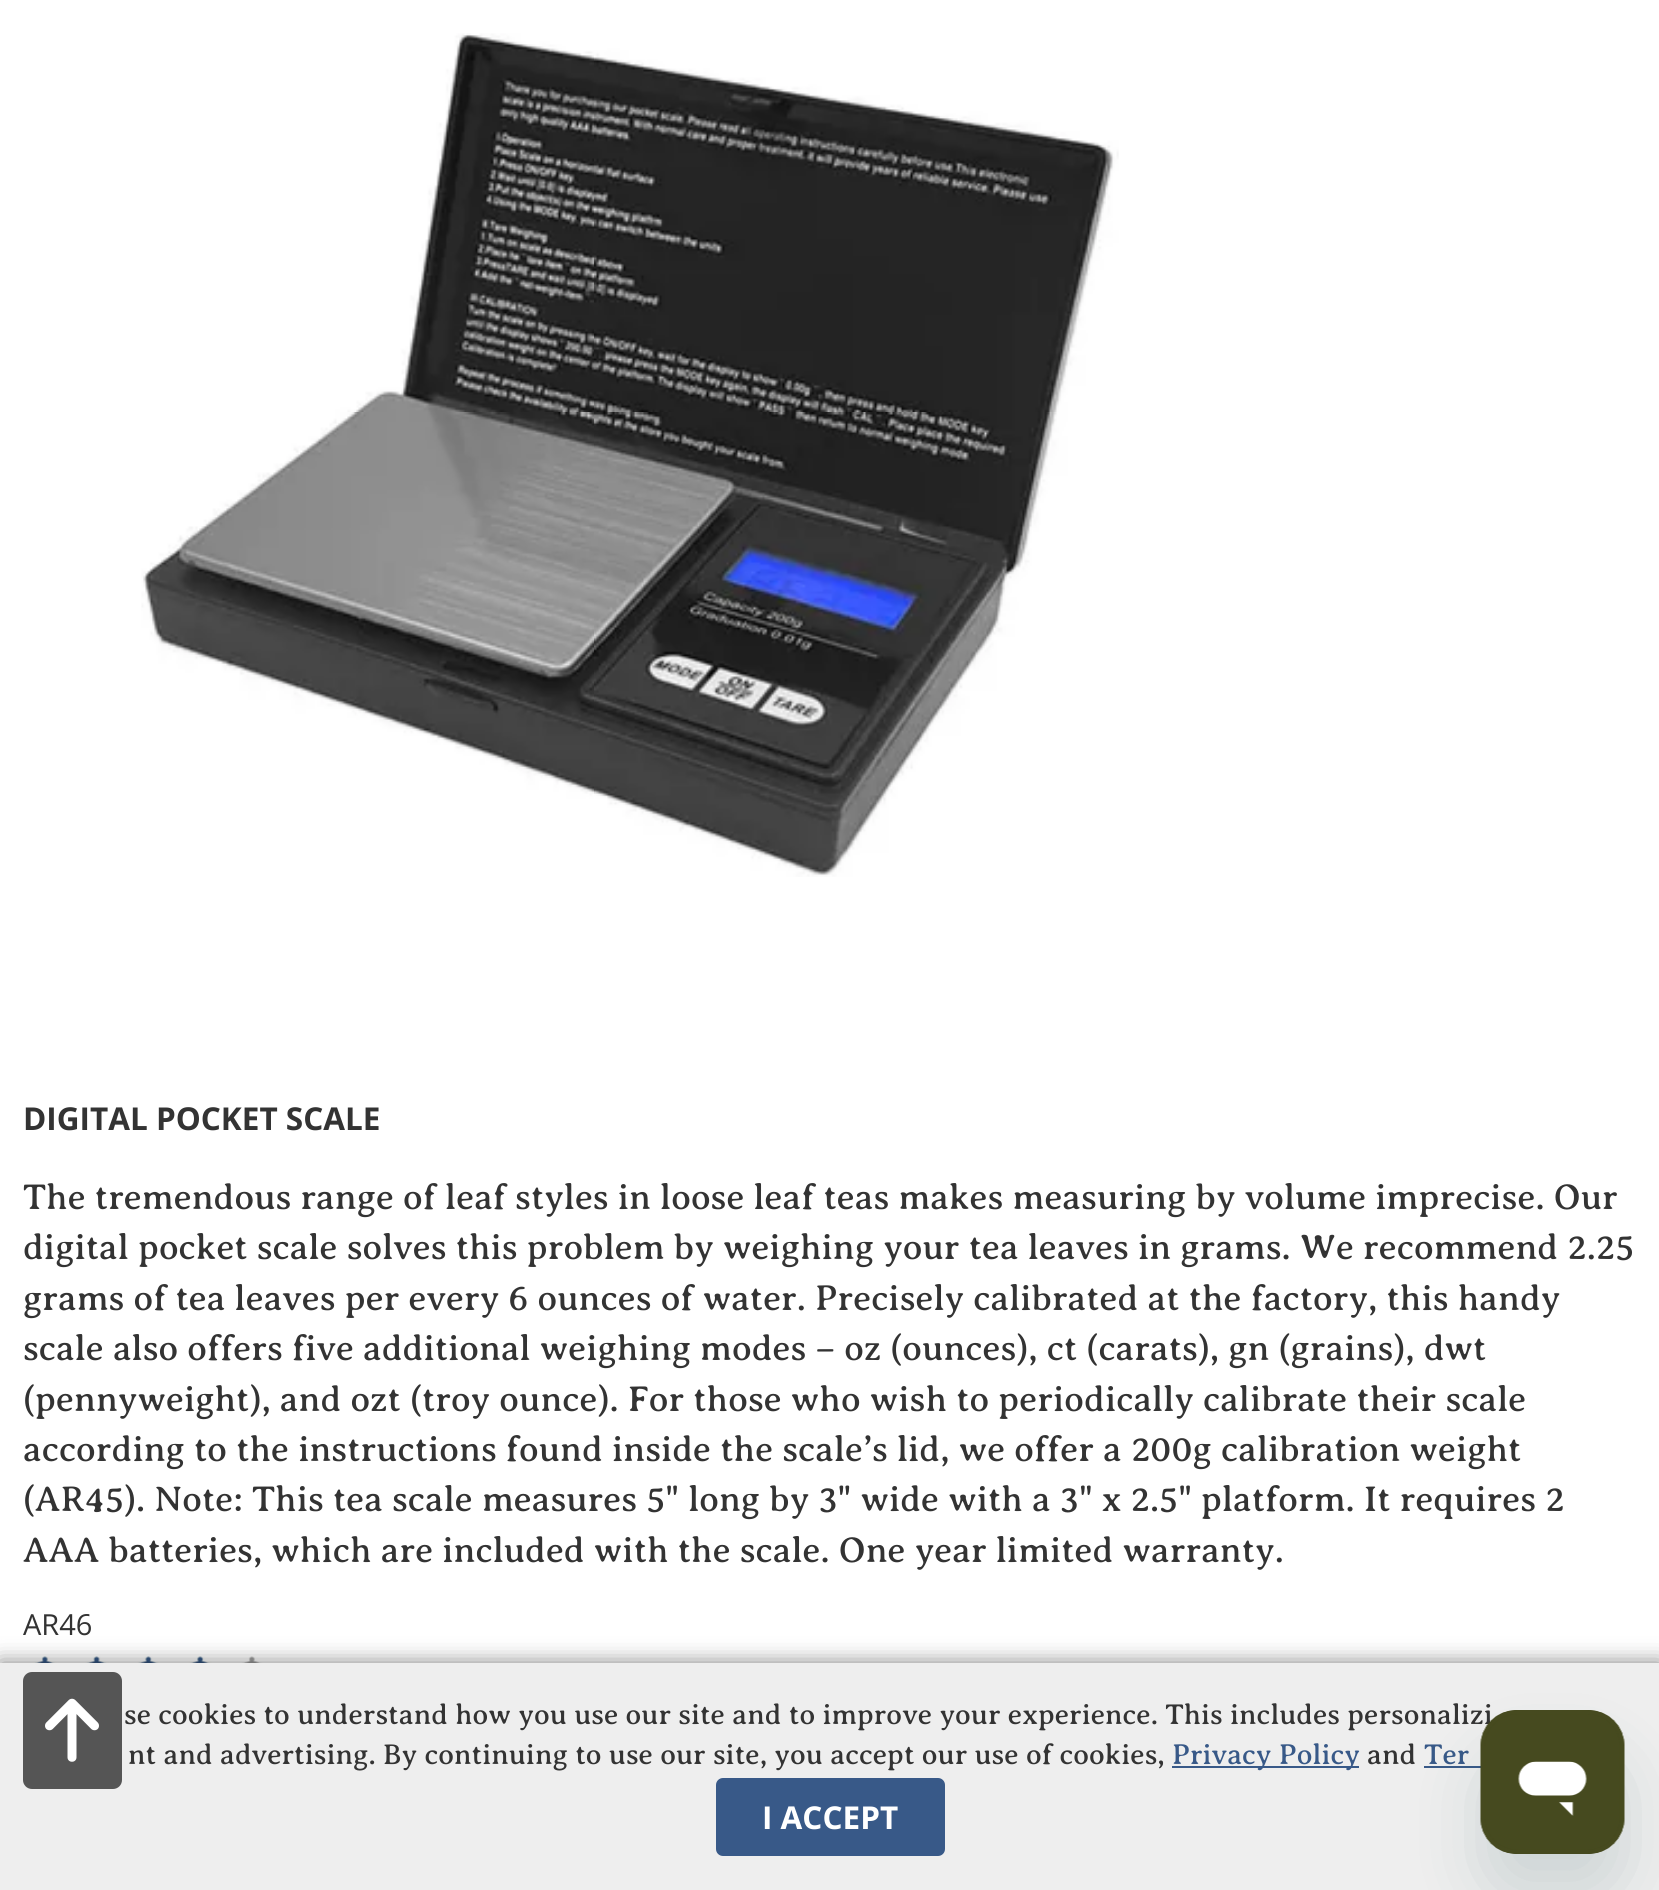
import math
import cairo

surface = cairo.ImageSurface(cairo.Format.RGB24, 1659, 1890)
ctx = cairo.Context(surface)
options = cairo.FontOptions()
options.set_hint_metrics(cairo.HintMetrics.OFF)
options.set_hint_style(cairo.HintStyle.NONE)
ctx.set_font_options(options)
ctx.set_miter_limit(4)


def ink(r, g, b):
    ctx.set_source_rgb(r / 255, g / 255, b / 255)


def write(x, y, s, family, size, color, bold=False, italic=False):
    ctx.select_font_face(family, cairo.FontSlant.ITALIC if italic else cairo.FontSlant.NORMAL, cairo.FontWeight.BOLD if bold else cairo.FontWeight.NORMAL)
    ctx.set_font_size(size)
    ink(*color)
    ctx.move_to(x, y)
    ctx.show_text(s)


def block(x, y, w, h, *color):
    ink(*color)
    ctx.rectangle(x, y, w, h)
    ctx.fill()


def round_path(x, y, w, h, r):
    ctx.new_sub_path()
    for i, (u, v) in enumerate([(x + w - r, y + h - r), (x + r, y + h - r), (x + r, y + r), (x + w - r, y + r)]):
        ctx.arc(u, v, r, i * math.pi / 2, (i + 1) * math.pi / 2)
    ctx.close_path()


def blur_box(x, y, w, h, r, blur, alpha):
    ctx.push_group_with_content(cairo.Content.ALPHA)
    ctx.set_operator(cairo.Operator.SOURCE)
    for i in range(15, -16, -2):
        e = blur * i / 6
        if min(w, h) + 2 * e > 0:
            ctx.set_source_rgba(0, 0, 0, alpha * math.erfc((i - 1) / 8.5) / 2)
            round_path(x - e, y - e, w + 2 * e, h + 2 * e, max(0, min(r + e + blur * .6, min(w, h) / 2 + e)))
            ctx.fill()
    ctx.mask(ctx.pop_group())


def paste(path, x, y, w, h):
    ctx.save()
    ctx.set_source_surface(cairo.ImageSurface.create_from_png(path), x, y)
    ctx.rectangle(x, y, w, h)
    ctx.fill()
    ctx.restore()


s1 = dict(family="Open Sans", size=31.5, color=(51, 51, 51), bold=True)
s2 = dict(family="Averia Serif Libre", size=36, color=(51, 51, 51))
s3 = dict(family="Open Sans", size=29, color=(51, 51, 51))
s4 = dict(family="Averia Serif Libre", size=28.8, color=(51, 51, 51))
s5 = dict(family="Averia Serif Libre", size=28.8, color=(56, 89, 136))
s6 = dict(family="Open Sans", size=31.5, color=(255, 255, 255), bold=True)

ink(255, 255, 255)
ctx.paint()
paste("pic1.png", 141, 33, 978, 844)
write(23, 1130, "DIGITAL POCKET SCALE", **s1)
write(23, 1209, "The tremendous range of leaf styles in loose leaf teas makes measuring by volume imprecise. Our", **s2)
write(23, 1259, "digital pocket scale solves this problem by weighing your tea leaves in grams. We recommend 2.25", **s2)
write(23, 1310, "grams of tea leaves per every 6 ounces of water. Precisely calibrated at the factory, this handy", **s2)
write(23, 1360, "scale also offers five additional weighing modes – oz (ounces), ct (carats), gn (grains), dwt", **s2)
write(23, 1411, "(pennyweight), and ozt (troy ounce). For those who wish to periodically calibrate their scale", **s2)
write(23, 1461, "according to the instructions found inside the scale’s lid, we offer a 200g calibration weight", **s2)
write(23, 1511, "(AR45). Note: This tea scale measures 5\" long by 3\" wide with a 3\" x 2.5\" platform. It requires 2", **s2)
write(23, 1562, "AAA batteries, which are included with the scale. One year limited warranty.", **s2)
write(23, 1635, "AR46", **s3)
paste("pic2.png", 22, 1656, 46, 7)
paste("pic3.png", 74, 1656, 46, 7)
paste("pic4.png", 125, 1656, 47, 7)
paste("pic5.png", 177, 1656, 46, 7)
paste("pic6.png", 229, 1656, 46, 7)
ink(0, 0, 0)
blur_box(0, 1663, 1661, 227, 0, 11, 0.5)
block(0, 1663, 1659, 227, 238, 238, 238)
ctx.set_source_rgba(0.184, 0.184, 0.184, 0.8)
round_path(23, 1672, 99, 117, 9)
ctx.fill()
paste("pic7.png", 45, 1698, 54, 64)
write(124, 1724, "se cookies to understand how you use our site and to improve your experience. This includes personalizi", **s4)
write(128, 1764, "nt and advertising. By continuing to use our site, you accept our use of cookies,", **s4)
block(1172, 1766, 187, 2, 56, 89, 136)
write(1172, 1764, "Privacy Policy", **s5)
write(1367, 1764, "and", **s4)
write(1424, 1764, "Ter", **s5)
block(1424, 1766, 57, 2, 56, 89, 136)
round_path(717, 1779, 227, 76, 6)
ctx.fill_preserve()
ctx.stroke()
write(762, 1829, "I ACCEPT", **s6)
ink(23, 73, 77)
blur_box(1481, 1755, 144, 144, 36, 34, 0.15)
paste("pic8.png", 1480, 1710, 145, 144)
surface.write_to_png("screenshot.png")
